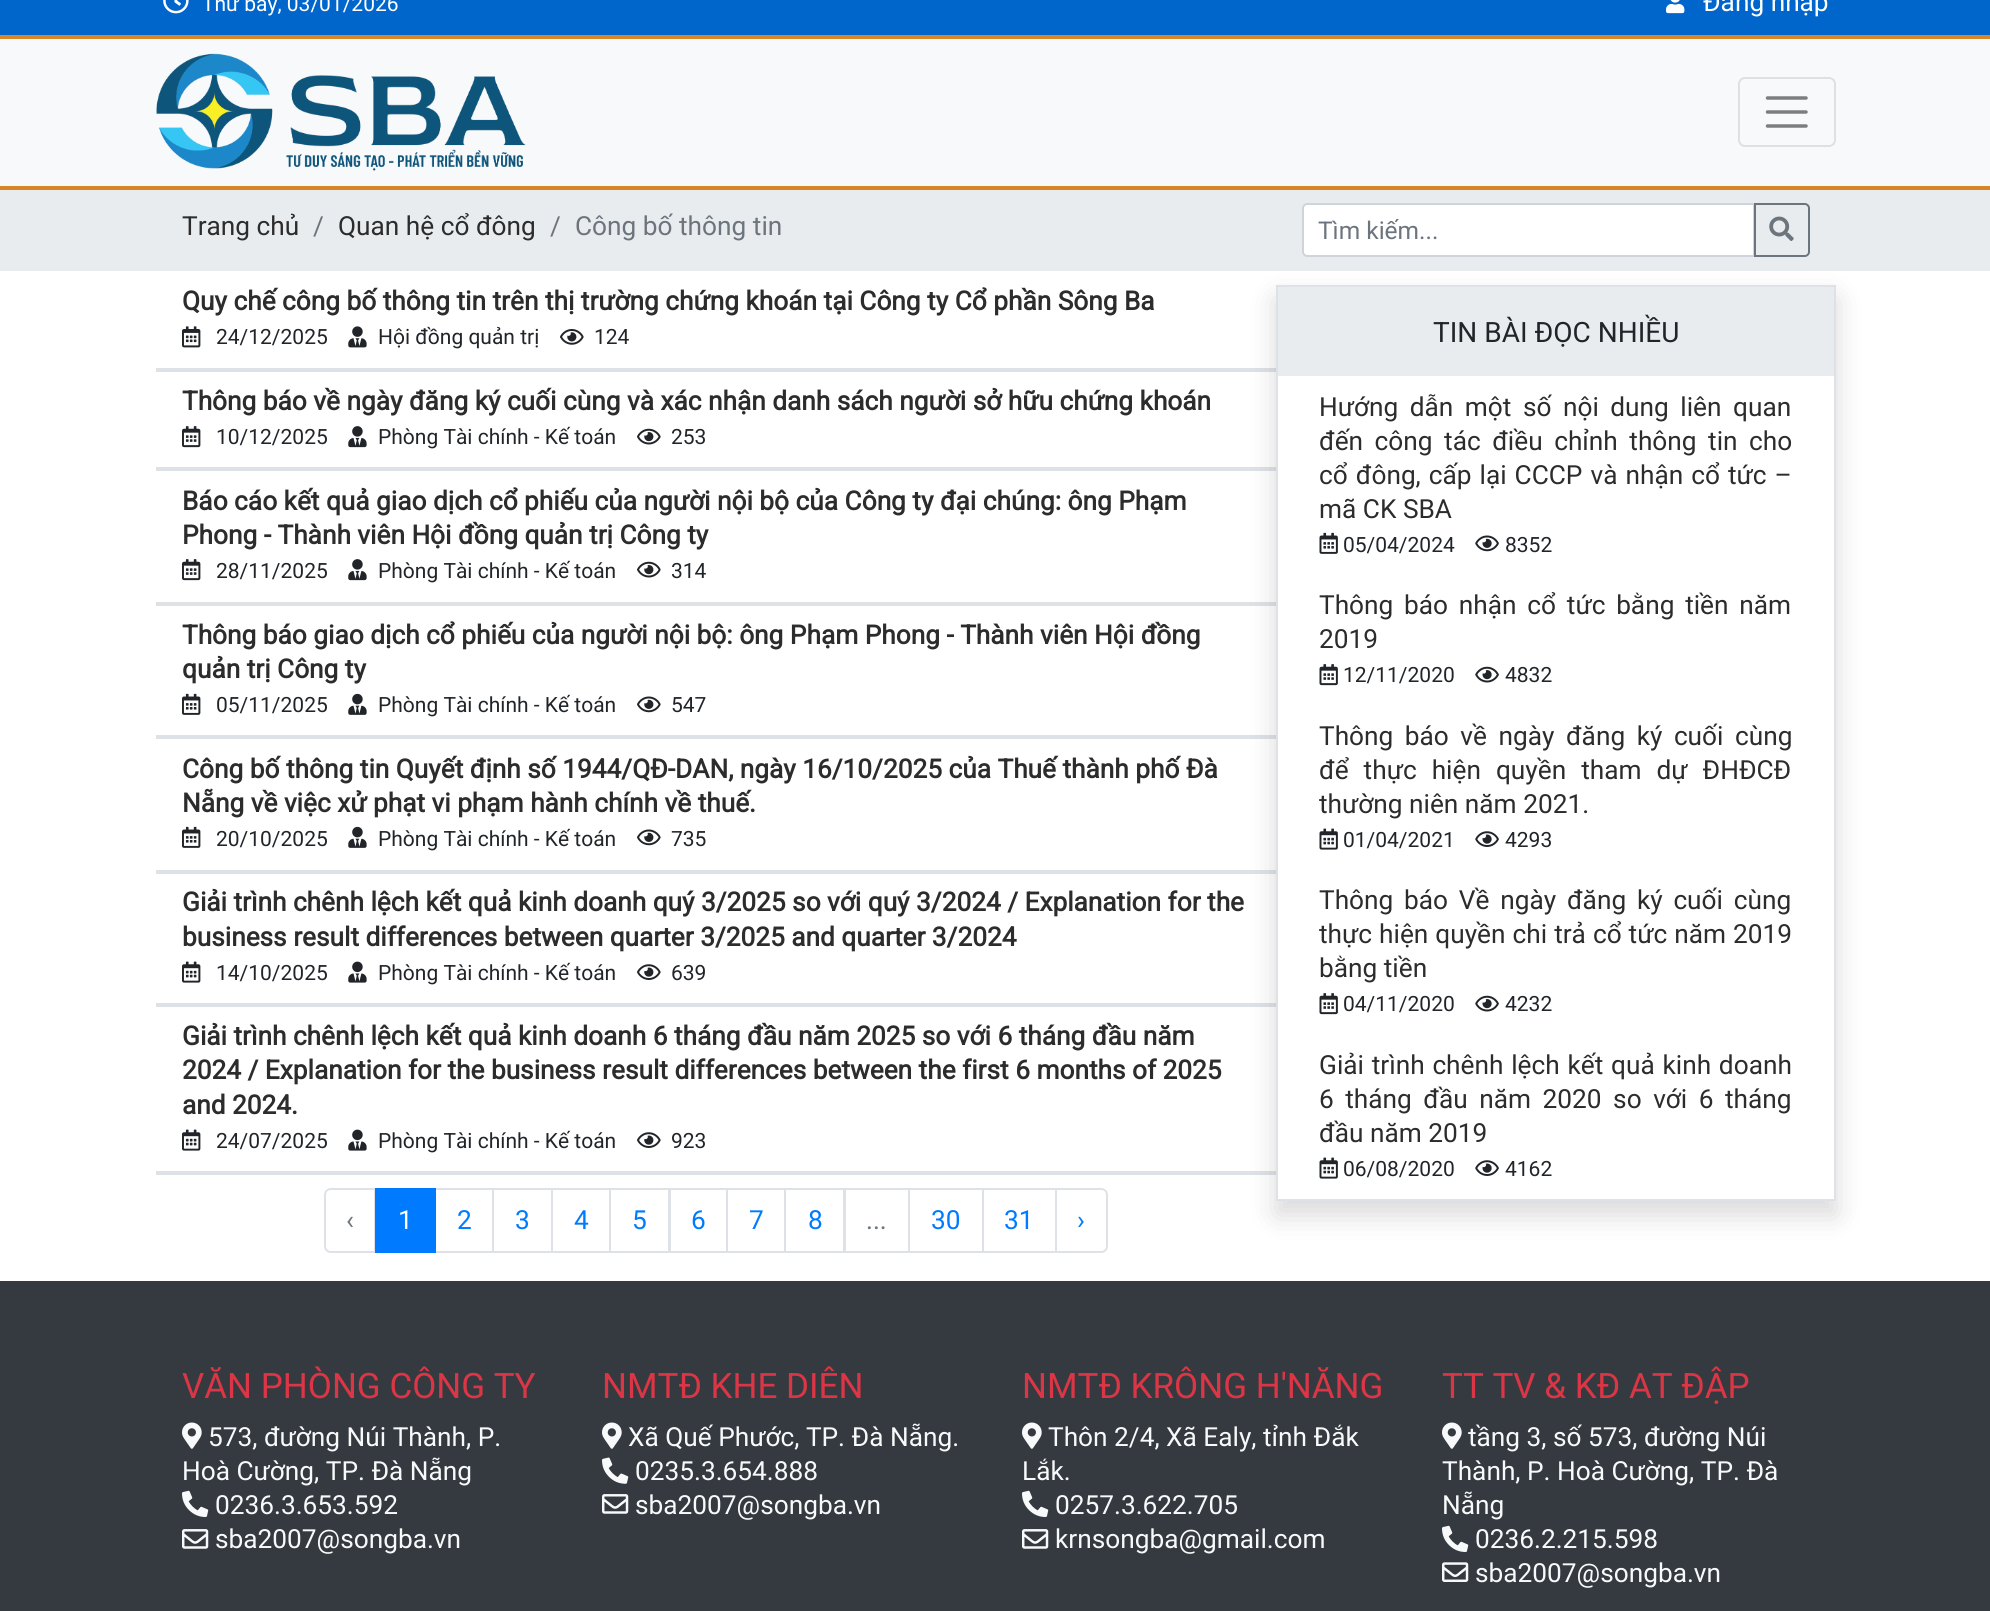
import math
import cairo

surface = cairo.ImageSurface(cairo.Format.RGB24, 1990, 1611)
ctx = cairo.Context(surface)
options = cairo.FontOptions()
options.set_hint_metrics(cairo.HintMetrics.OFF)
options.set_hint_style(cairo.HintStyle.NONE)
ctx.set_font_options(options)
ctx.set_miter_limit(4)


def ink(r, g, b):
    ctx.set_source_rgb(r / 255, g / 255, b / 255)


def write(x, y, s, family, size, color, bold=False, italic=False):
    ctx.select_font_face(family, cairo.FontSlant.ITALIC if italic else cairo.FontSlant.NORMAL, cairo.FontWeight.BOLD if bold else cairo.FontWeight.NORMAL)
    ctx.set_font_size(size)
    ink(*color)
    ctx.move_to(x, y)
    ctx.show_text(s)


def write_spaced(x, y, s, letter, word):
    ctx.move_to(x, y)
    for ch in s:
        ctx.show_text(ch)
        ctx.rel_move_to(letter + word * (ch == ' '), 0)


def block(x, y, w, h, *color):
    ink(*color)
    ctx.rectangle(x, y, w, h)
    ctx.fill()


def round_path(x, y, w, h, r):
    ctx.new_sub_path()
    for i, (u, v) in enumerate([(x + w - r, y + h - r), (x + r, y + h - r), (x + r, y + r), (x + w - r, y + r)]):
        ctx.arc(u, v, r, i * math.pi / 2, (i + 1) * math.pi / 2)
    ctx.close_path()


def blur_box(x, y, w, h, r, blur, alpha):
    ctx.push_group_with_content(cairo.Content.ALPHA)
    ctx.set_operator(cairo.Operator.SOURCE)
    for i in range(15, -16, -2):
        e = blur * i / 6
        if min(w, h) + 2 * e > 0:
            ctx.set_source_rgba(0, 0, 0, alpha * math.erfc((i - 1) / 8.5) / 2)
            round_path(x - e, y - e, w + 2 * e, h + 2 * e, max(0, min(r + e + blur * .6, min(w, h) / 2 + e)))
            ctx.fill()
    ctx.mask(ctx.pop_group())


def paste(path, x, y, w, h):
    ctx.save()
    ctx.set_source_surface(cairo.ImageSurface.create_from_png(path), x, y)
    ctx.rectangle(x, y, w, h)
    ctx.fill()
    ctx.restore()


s1 = dict(family="Roboto", size=21, color=(255, 255, 255))
s2 = dict(family="Roboto", size=26.25, color=(255, 255, 255))
s3 = dict(family="Roboto", size=26.25, color=(44, 44, 44))
s4 = dict(family="Roboto", size=26.25, color=(108, 117, 125))
s5 = dict(family="Roboto", size=24.5, color=(108, 117, 125))
s6 = dict(family="Roboto", size=26.25, color=(44, 44, 44), bold=True)
s7 = dict(family="Roboto", size=21, color=(33, 37, 41))
s8 = dict(family="Roboto", size=26.25, color=(0, 123, 255))
s9 = dict(family="Roboto", size=28, color=(33, 37, 41))
s10 = dict(family="Roboto", size=35, color=(220, 53, 69))
s11 = dict(family="Roboto", size=26.25, color=(248, 249, 250))

ink(255, 255, 255)
ctx.paint()
block(0, 0, 1990, 35, 0, 102, 204)
paste("pic1.png", 163, 0, 26, 14)
write(202, 11, "Thứ bảy, 03/01/2026", **s1)
paste("pic2.png", 1666, 0, 19, 14)
write(1703, 11, "Đăng nhập", **s2)
block(0, 39, 1990, 147, 248, 249, 250)
block(0, 35, 1990, 4, 214, 133, 40)
block(0, 186, 1990, 4, 214, 133, 40)
paste("pic3.png", 156, 53, 370, 118)
round_path(1739, 78, 96, 68, 6)
ink(223, 224, 225)
ctx.stroke()
ctx.new_path()
ctx.move_to(1767.5, 98)
ctx.line_to(1806, 98)
ctx.move_to(1767.5, 112)
ctx.line_to(1806, 112)
ctx.move_to(1767.5, 126)
ctx.line_to(1806, 126)
ink(124, 125, 125)
ctx.set_line_width(3.5)
ctx.set_line_cap(cairo.LineCap.ROUND)
ctx.stroke()
block(0, 190, 1990, 81, 233, 236, 239)
write(182, 235, "Trang chủ", **s3)
write(313, 235, "/", **s4)
write(338, 235, "Quan hệ cổ đông", **s3)
write(550, 235, "/", **s4)
write(575, 235, "Công bố thông tin", **s4)
ink(255, 255, 255)
ctx.new_path()
ctx.move_to(1307, 204)
ctx.line_to(1754, 204)
ctx.line_to(1754, 256)
ctx.line_to(1307, 256)
ctx.curve_to(1305, 256, 1303, 254, 1303, 252)
ctx.line_to(1303, 208)
ctx.curve_to(1303, 206, 1305, 204, 1307, 204)
ctx.close_path()
ctx.fill_preserve()
ink(206, 212, 218)
ctx.set_line_width(2)
ctx.set_line_cap(cairo.LineCap.BUTT)
ctx.stroke()
write(1318, 239, "Tìm kiếm...", **s5)
block(156, 368, 1120, 4, 222, 226, 230)
block(156, 467, 1120, 4, 222, 226, 230)
block(156, 602, 1120, 4, 222, 226, 230)
block(156, 735, 1120, 4, 222, 226, 230)
block(156, 870, 1120, 4, 222, 226, 230)
block(156, 1003, 1120, 4, 222, 226, 230)
block(156, 1171, 1120, 4, 222, 226, 230)
ctx.save()
ctx.set_fill_rule(cairo.FillRule.EVEN_ODD)
ctx.new_path()
ctx.move_to(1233, 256)
ctx.line_to(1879, 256)
ctx.line_to(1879, 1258)
ctx.line_to(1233, 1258)
ctx.close_path()
ctx.move_to(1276, 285)
ctx.line_to(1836, 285)
ctx.line_to(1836, 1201)
ctx.line_to(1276, 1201)
ctx.close_path()
ctx.clip()
ink(0, 0, 0)
blur_box(1276, 299, 560, 916, 0, 14, 0.15)
ctx.restore()
ctx.new_path()
ctx.move_to(1755, 204)
ctx.line_to(1805, 204)
ctx.curve_to(1807, 204, 1809, 206, 1809, 208)
ctx.line_to(1809, 252)
ctx.curve_to(1809, 254, 1807, 256, 1805, 256)
ctx.line_to(1755, 256)
ctx.close_path()
ink(108, 117, 125)
ctx.stroke()
paste("pic4.png", 1769, 216, 25, 25)
write(182, 310, "Quy chế công bố thông tin trên thị trường chứng khoán tại Công ty Cổ phần Sông Ba", **s6)
paste("pic5.png", 182, 326, 19, 22)
write(216, 344, "24/12/2025", **s7)
paste("pic6.png", 348, 326, 19, 22)
write(378, 344, "Hội đồng quản trị", **s7)
paste("pic7.png", 560, 329, 24, 16)
write(594, 344, "124", **s7)
write(182, 410, "Thông báo về ngày đăng ký cuối cùng và xác nhận danh sách người sở hữu chứng khoán", **s6)
paste("pic8.png", 182, 426, 19, 22)
write(216, 444, "10/12/2025", **s7)
paste("pic9.png", 348, 426, 19, 22)
write(378, 444, "Phòng Tài chính - Kế toán", **s7)
paste("pic10.png", 637, 428, 24, 17)
write(671, 444, "253", **s7)
write(182, 510, "Báo cáo kết quả giao dịch cổ phiếu của người nội bộ của Công ty đại chúng: ông Phạm", **s6)
write(182, 544, "Phong - Thành viên Hội đồng quản trị Công ty", **s6)
paste("pic8.png", 182, 559, 19, 22)
write(216, 578, "28/11/2025", **s7)
paste("pic9.png", 348, 559, 19, 22)
write(378, 578, "Phòng Tài chính - Kế toán", **s7)
paste("pic10.png", 637, 561, 24, 17)
write(671, 578, "314", **s7)
write(182, 644, "Thông báo giao dịch cổ phiếu của người nội bộ: ông Phạm Phong - Thành viên Hội đồng", **s6)
write(182, 678, "quản trị Công ty", **s6)
paste("pic11.png", 182, 693, 19, 22)
write(216, 712, "05/11/2025", **s7)
paste("pic12.png", 348, 693, 19, 22)
write(378, 712, "Phòng Tài chính - Kế toán", **s7)
paste("pic13.png", 637, 696, 24, 17)
write(671, 712, "547", **s7)
write(182, 778, "Công bố thông tin Quyết định số 1944/QĐ-DAN, ngày 16/10/2025 của Thuế thành phố Đà", **s6)
write(182, 812, "Nẵng về việc xử phạt vi phạm hành chính về thuế.", **s6)
paste("pic11.png", 182, 826, 19, 22)
write(216, 846, "20/10/2025", **s7)
paste("pic12.png", 348, 826, 19, 22)
write(378, 846, "Phòng Tài chính - Kế toán", **s7)
paste("pic13.png", 637, 829, 24, 17)
write(671, 846, "735", **s7)
write(182, 911, "Giải trình chênh lệch kết quả kinh doanh quý 3/2025 so với quý 3/2024 / Explanation for the", **s6)
write(182, 946, "business result differences between quarter 3/2025 and quarter 3/2024", **s6)
paste("pic14.png", 182, 961, 19, 22)
write(216, 980, "14/10/2025", **s7)
paste("pic15.png", 348, 961, 19, 22)
write(378, 980, "Phòng Tài chính - Kế toán", **s7)
paste("pic16.png", 637, 964, 24, 16)
write(671, 980, "639", **s7)
write(182, 1045, "Giải trình chênh lệch kết quả kinh doanh 6 tháng đầu năm 2025 so với 6 tháng đầu năm", **s6)
write(182, 1079, "2024 / Explanation for the business result differences between the first 6 months of 2025", **s6)
write(182, 1114, "and 2024.", **s6)
paste("pic14.png", 182, 1129, 19, 22)
write(216, 1148, "24/07/2025", **s7)
paste("pic15.png", 348, 1129, 19, 22)
write(378, 1148, "Phòng Tài chính - Kế toán", **s7)
paste("pic16.png", 637, 1132, 24, 16)
write(671, 1148, "923", **s7)
ctx.new_path()
ctx.move_to(331, 1189)
ctx.line_to(375, 1189)
ctx.line_to(375, 1252)
ctx.line_to(331, 1252)
ctx.curve_to(327.5, 1252, 325, 1249.5, 325, 1246)
ctx.line_to(325, 1195)
ctx.curve_to(325, 1191.5, 327.5, 1189, 331, 1189)
ctx.close_path()
ink(222, 226, 230)
ctx.stroke()
write(346, 1229, "‹", **s4)
ctx.rectangle(435, 1189, 58, 63)
ink(222, 226, 230)
ctx.stroke()
block(375, 1188, 61, 65, 0, 123, 255)
write(398, 1229, "1", **s2)
write(457, 1229, "2", **s8)
ctx.rectangle(493, 1189, 59, 63)
ink(222, 226, 230)
ctx.stroke()
write(515, 1229, "3", **s8)
ctx.rectangle(552, 1189, 58, 63)
ink(222, 226, 230)
ctx.stroke()
write(574, 1229, "4", **s8)
ctx.rectangle(610, 1189, 59, 63)
ink(222, 226, 230)
ctx.stroke()
write(632, 1229, "5", **s8)
ctx.rectangle(670, 1189, 57, 63)
ink(222, 226, 230)
ctx.stroke()
write(691, 1229, "6", **s8)
ctx.rectangle(727, 1189, 58, 63)
ink(222, 226, 230)
ctx.stroke()
write(749, 1229, "7", **s8)
ctx.rectangle(785, 1189, 59, 63)
ink(222, 226, 230)
ctx.stroke()
write(808, 1229, "8", **s8)
ctx.rectangle(845, 1189, 64, 63)
ink(222, 226, 230)
ctx.stroke()
write(866, 1229, "...", **s4)
ctx.rectangle(909, 1189, 74, 63)
ink(222, 226, 230)
ctx.stroke()
write(931, 1229, "30", **s8)
ctx.rectangle(983, 1189, 73, 63)
ink(222, 226, 230)
ctx.stroke()
write(1004, 1229, "31", **s8)
ink(255, 255, 255)
ctx.new_path()
ctx.move_to(1056, 1189)
ctx.line_to(1101, 1189)
ctx.curve_to(1104.5, 1189, 1107, 1191.5, 1107, 1195)
ctx.line_to(1107, 1246)
ctx.curve_to(1107, 1249.5, 1104.5, 1252, 1101, 1252)
ctx.line_to(1056, 1252)
ctx.close_path()
ctx.fill_preserve()
ink(222, 226, 230)
ctx.stroke()
write(1077, 1229, "›", **s8)
ctx.rectangle(1277, 286, 558, 914)
ink(222, 226, 230)
ctx.stroke()
block(1278, 287, 556, 89, 233, 236, 239)
write(1433, 342, "TIN BÀI ĐỌC NHIỀU", **s9)
ctx.set_font_size(26.25)
ink(44, 44, 44)
write_spaced(1319, 416, "Hướng dẫn một số nội dung liên quan", 0, 5)
write_spaced(1319, 450, "đến công tác điều chỉnh thông tin cho", 0, 5)
write_spaced(1319, 484, "cổ đông, cấp lại CCCP và nhận cổ tức –", 0, 1.5)
write(1319, 518, "mã CK SBA", **s3)
paste("pic17.png", 1319, 532, 19, 22)
write(1343, 552, "05/04/2024", **s7)
paste("pic18.png", 1475, 535, 24, 17)
write(1505, 552, "8352", **s7)
ctx.set_font_size(26.25)
ink(44, 44, 44)
write_spaced(1319, 614, "Thông báo nhận cổ tức bằng tiền năm", 0, 4.25)
write(1319, 648, "2019", **s3)
paste("pic19.png", 1319, 664, 19, 22)
write(1343, 682, "12/11/2020", **s7)
paste("pic20.png", 1475, 666, 24, 17)
write(1505, 682, "4832", **s7)
ctx.set_font_size(26.25)
ink(44, 44, 44)
write_spaced(1319, 745, "Thông báo về ngày đăng ký cuối cùng", 0, 5)
write_spaced(1319, 779, "để thực hiện quyền tham dự ĐHĐCĐ", 0, 8.5)
write(1319, 813, "thường niên năm 2021.", **s3)
paste("pic21.png", 1319, 828, 19, 22)
write(1343, 847, "01/04/2021", **s7)
paste("pic22.png", 1475, 831, 24, 16)
write(1505, 847, "4293", **s7)
ctx.set_font_size(26.25)
ink(44, 44, 44)
write_spaced(1319, 909, "Thông báo Về ngày đăng ký cuối cùng", 0, 4.25)
write_spaced(1319, 943, "thực hiện quyền chi trả cổ tức năm 2019", 0, 0.5)
write(1319, 977, "bằng tiền", **s3)
paste("pic19.png", 1319, 993, 19, 22)
write(1343, 1011, "04/11/2020", **s7)
paste("pic20.png", 1475, 995, 24, 17)
write(1505, 1011, "4232", **s7)
ctx.set_font_size(26.25)
ink(44, 44, 44)
write_spaced(1319, 1074, "Giải trình chênh lệch kết quả kinh doanh", 0, 1.25)
write_spaced(1319, 1108, "6 tháng đầu năm 2020 so với 6 tháng", 0, 5)
write(1319, 1142, "đầu năm 2019", **s3)
paste("pic21.png", 1319, 1157, 19, 22)
write(1343, 1176, "06/08/2020", **s7)
paste("pic22.png", 1475, 1160, 24, 16)
write(1505, 1176, "4162", **s7)
block(0, 1281, 1990, 330, 52, 58, 64)
write(182, 1398, "VĂN PHÒNG CÔNG TY", **s10)
paste("pic23.png", 182, 1422, 20, 27)
write(208, 1446, "573, đường Núi Thành, P.", **s11)
write(182, 1480, "Hoà Cường, TP. Đà Nẵng", **s11)
paste("pic24.png", 182, 1490, 27, 27)
write(215, 1514, "0236.3.653.592", **s11)
paste("pic25.png", 182, 1529, 27, 20)
write(215, 1548, "sba2007@songba.vn", **s11)
write(602, 1398, "NMTĐ KHE DIÊN", **s10)
paste("pic23.png", 602, 1422, 20, 27)
write(628, 1446, "Xã Quế Phước, TP. Đà Nẵng.", **s11)
paste("pic26.png", 602, 1457, 27, 27)
write(635, 1480, "0235.3.654.888", **s11)
paste("pic25.png", 602, 1494, 27, 20)
write(635, 1514, "sba2007@songba.vn", **s11)
write(1022, 1398, "NMTĐ KRÔNG H'NĂNG", **s10)
paste("pic23.png", 1022, 1422, 20, 27)
write(1048, 1446, "Thôn 2/4, Xã Ealy, tỉnh Đắk", **s11)
write(1022, 1480, "Lắk.", **s11)
paste("pic24.png", 1022, 1490, 27, 27)
write(1055, 1514, "0257.3.622.705", **s11)
paste("pic25.png", 1022, 1529, 27, 20)
write(1055, 1548, "krnsongba@gmail.com", **s11)
write(1442, 1398, "TT TV & KĐ AT ĐẬP", **s10)
paste("pic23.png", 1442, 1422, 20, 27)
write(1468, 1446, "tầng 3, số 573, đường Núi", **s11)
write(1442, 1480, "Thành, P. Hoà Cường, TP. Đà", **s11)
write(1442, 1514, "Nẵng", **s11)
paste("pic24.png", 1442, 1525, 27, 27)
write(1475, 1548, "0236.2.215.598", **s11)
paste("pic27.png", 1442, 1562, 27, 20)
write(1475, 1582, "sba2007@songba.vn", **s11)
surface.write_to_png("screenshot.png")
